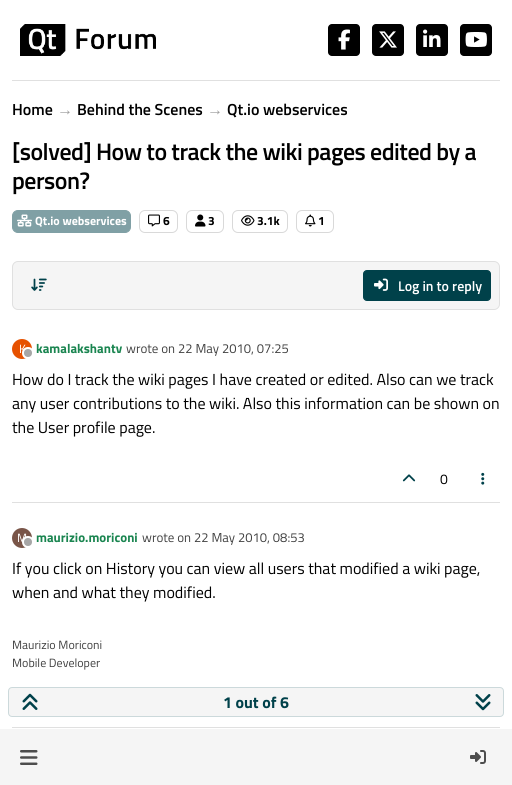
import math
import cairo

surface = cairo.ImageSurface(cairo.Format.RGB24, 512, 785)
ctx = cairo.Context(surface)
options = cairo.FontOptions()
options.set_hint_metrics(cairo.HintMetrics.OFF)
options.set_hint_style(cairo.HintStyle.NONE)
ctx.set_font_options(options)
ctx.set_miter_limit(4)


def ink(r, g, b):
    ctx.set_source_rgb(r / 255, g / 255, b / 255)


def write(x, y, s, family, size, color, bold=False, italic=False):
    ctx.select_font_face(family, cairo.FontSlant.ITALIC if italic else cairo.FontSlant.NORMAL, cairo.FontWeight.BOLD if bold else cairo.FontWeight.NORMAL)
    ctx.set_font_size(size)
    ink(*color)
    ctx.move_to(x, y)
    ctx.show_text(s)


def write_spaced(x, y, s, letter, word):
    ctx.move_to(x, y)
    for ch in s:
        ctx.show_text(ch)
        ctx.rel_move_to(letter + word * (ch == ' '), 0)


def block(x, y, w, h, *color):
    ink(*color)
    ctx.rectangle(x, y, w, h)
    ctx.fill()


def round_path(x, y, w, h, r):
    ctx.new_sub_path()
    for i, (u, v) in enumerate([(x + w - r, y + h - r), (x + r, y + h - r), (x + r, y + r), (x + w - r, y + r)]):
        ctx.arc(u, v, r, i * math.pi / 2, (i + 1) * math.pi / 2)
    ctx.close_path()


def paste(path, x, y, w, h):
    ctx.save()
    ctx.set_source_surface(cairo.ImageSurface.create_from_png(path), x, y)
    ctx.rectangle(x, y, w, h)
    ctx.fill()
    ctx.restore()


s1 = dict(family="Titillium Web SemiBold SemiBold", size=16, color=(0, 0, 0))
s2 = dict(family="Liberation Sans", size=16, color=(158, 158, 158), bold=True)
s3 = dict(family="Titillium Web", size=12, color=(255, 255, 255), bold=True)
s4 = dict(family="Titillium Web", size=12, color=(0, 0, 0), bold=True)
s5 = dict(family="Titillium Web SemiBold SemiBold", size=14, color=(255, 255, 255))
s6 = dict(family="Titillium Web", size=12, color=(255, 255, 255))
s7 = dict(family="Titillium Web", size=13, color=(26, 133, 80), bold=True)
s8 = dict(family="Titillium Web", size=13, color=(64, 64, 64))
s9 = dict(family="Titillium Web", size=16, color=(0, 0, 0))
s10 = dict(family="Titillium Web", size=14, color=(0, 0, 0))
s11 = dict(family="Titillium Web", size=12, color=(64, 64, 64))
s12 = dict(family="Titillium Web", size=16, color=(0, 65, 74), bold=True)

ink(255, 255, 255)
ctx.paint()
block(12, 80, 488, 1, 224, 224, 224)
paste("pic1.png", 20, 24, 136, 32)
ink(0, 0, 0)
round_path(328, 24, 32, 32, 4)
ctx.fill()
paste("pic2.png", 338, 29, 12, 21)
round_path(372, 24, 32, 32, 4)
ctx.fill()
paste("pic3.png", 379, 31, 18, 17)
round_path(416, 24, 32, 32, 4)
ctx.fill()
paste("pic4.png", 423, 29, 18, 18)
round_path(460, 24, 32, 32, 4)
ctx.fill()
paste("pic5.png", 465, 32, 22, 15)
write(12, 115, "Home", **s1)
write(57, 115, "→", **s2)
write(77, 115, "Behind the Scenes", **s1)
write(207, 115, "→", **s2)
write(227, 115, "Qt.io webservices", **s1)
ctx.set_font_size(23.9)
write_spaced(12, 160, "[solved] How to track the wiki pages edited by a", -0.5, 0)
write_spaced(12, 189, "person?", -0.5, 0)
ink(128, 160, 165)
round_path(12.5, 210.5, 118, 22, 5.5)
ctx.fill_preserve()
ctx.set_line_width(1)
ctx.stroke()
paste("pic6.png", 17, 214, 15, 13)
write(35, 225, "Qt.io webservices", **s3)
round_path(139.5, 210.5, 38, 22, 5.5)
ink(217, 217, 217)
ctx.stroke()
paste("pic7.png", 148, 214, 12, 13)
write(163, 225, "6", **s4)
round_path(186.5, 210.5, 37, 22, 5.5)
ink(217, 217, 217)
ctx.stroke()
paste("pic8.png", 195, 214, 11, 13)
write(208, 225, "3", **s4)
round_path(232.5, 210.5, 55, 22, 5.5)
ink(217, 217, 217)
ctx.stroke()
paste("pic9.png", 241, 215, 14, 11)
write(257, 225, "3.1k", **s4)
round_path(296.5, 210.5, 37, 22, 5.5)
ink(217, 217, 217)
ctx.stroke()
paste("pic10.png", 305, 214, 11, 13)
write(318, 225, "1", **s4)
ink(245, 245, 245)
round_path(12.5, 261.5, 487, 48, 5.5)
ctx.fill_preserve()
ink(224, 224, 224)
ctx.stroke()
paste("pic11.png", 31, 278, 16, 13)
ink(0, 65, 74)
round_path(363.5, 270.5, 127, 30, 3.5)
ctx.fill_preserve()
ctx.stroke()
paste("pic12.png", 374, 278, 14, 13)
write(398, 291, "Log in to reply", **s5)
ink(230, 81, 0)
ctx.new_path()
ctx.arc(22, 349, 10, 0, 2 * math.pi)
ctx.fill()
write(19, 353, "K", **s6)
ink(166, 166, 166)
ctx.new_path()
ctx.arc(28, 353, 5, 0, 2 * math.pi)
ctx.fill_preserve()
ink(255, 255, 255)
ctx.set_line_width(2)
ctx.stroke()
write(36, 353, "kamalakshantv", **s7)
write(126, 353, "wrote on 22 May 2010, 07:25", **s8)
write(12, 385, "How do I track the wiki pages I have created or edited. Also can we track", **s9)
write(12, 409, "any user contributions to the wiki. Also this information can be shown on", **s9)
write(12, 433, "the User profile page.", **s9)
block(12, 502, 488, 1, 224, 224, 224)
paste("pic13.png", 402, 474, 14, 8)
write(440, 484, "0", **s10)
paste("pic14.png", 481, 472, 4, 13)
ink(121, 85, 72)
ctx.arc(22, 538, 10, 0, 2 * math.pi)
ctx.fill()
write(17, 542, "M", **s6)
ink(166, 166, 166)
ctx.new_path()
ctx.arc(28, 542, 5, 0, 2 * math.pi)
ctx.fill_preserve()
ink(255, 255, 255)
ctx.stroke()
write(36, 542, "maurizio.moriconi", **s7)
write(142, 542, "wrote on 22 May 2010, 08:53", **s8)
write(12, 574, "If you click on History you can view all users that modified a wiki page,", **s9)
write(12, 598, "when and what they modified.", **s9)
block(12, 727, 488, 1, 224, 224, 224)
write(12, 649, "Maurizio Moriconi", **s11)
write(12, 667, "Mobile Developer", **s11)
ink(245, 245, 245)
round_path(8.5, 687.5, 495, 29, 3.5)
ctx.fill_preserve()
ink(204, 217, 219)
ctx.set_line_width(1)
ctx.stroke()
paste("pic15.png", 22, 693, 16, 17)
write(223, 708, "1 out of 6", **s12)
paste("pic16.png", 475, 694, 16, 17)
block(0, 729, 512, 56, 245, 245, 245)
paste("pic17.png", 20, 750, 18, 15)
paste("pic18.png", 470, 750, 16, 14)
surface.write_to_png("screenshot.png")
